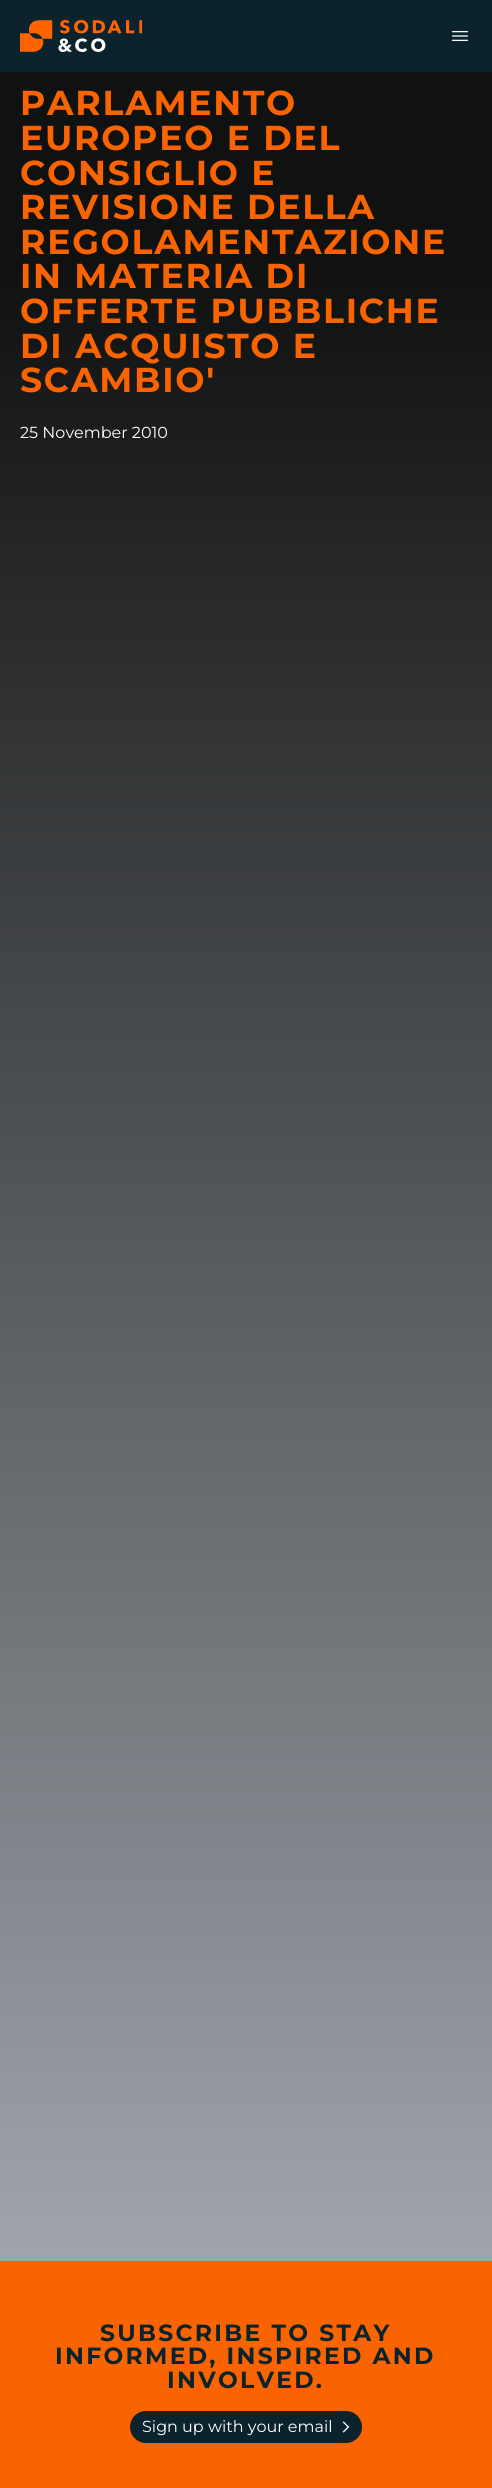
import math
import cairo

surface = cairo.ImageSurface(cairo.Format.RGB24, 492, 2488)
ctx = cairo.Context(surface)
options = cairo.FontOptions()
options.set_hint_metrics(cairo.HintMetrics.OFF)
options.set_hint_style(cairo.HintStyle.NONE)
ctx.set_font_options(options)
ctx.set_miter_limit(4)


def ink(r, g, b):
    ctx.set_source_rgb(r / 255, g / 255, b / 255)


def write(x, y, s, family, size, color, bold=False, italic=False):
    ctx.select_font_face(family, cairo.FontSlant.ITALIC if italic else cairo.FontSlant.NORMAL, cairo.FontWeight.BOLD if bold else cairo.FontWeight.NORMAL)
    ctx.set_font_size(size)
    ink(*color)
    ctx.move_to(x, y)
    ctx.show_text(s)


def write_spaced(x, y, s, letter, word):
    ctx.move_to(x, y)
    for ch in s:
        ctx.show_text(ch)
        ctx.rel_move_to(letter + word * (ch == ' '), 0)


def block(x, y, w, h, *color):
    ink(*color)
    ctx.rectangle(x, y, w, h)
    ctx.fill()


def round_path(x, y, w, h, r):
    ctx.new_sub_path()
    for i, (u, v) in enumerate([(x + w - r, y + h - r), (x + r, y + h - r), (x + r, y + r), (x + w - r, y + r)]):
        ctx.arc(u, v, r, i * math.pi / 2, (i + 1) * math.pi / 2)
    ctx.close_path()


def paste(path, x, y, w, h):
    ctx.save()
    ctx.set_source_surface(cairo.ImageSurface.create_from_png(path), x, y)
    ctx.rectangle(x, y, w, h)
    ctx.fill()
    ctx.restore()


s1 = dict(family="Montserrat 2 Thin", size=16, color=(255, 255, 255))

ink(250, 100, 0)
ctx.paint()
block(0, 0, 492, 72, 10, 35, 45)
paste("pic1.png", 20, 20, 123, 32)
paste("pic2.png", 452, 30, 16, 12)
gradient = cairo.LinearGradient(246, -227, 246, 2261)
gradient.add_color_stop_rgba(0.2, 0.063, 0.067, 0.067, 1)
gradient.add_color_stop_rgba(1, 0.627, 0.647, 0.675, 1)
ctx.set_source(gradient)
ctx.rectangle(0, 72, 492, 2189)
ctx.fill()
ctx.select_font_face("Montserrat Thin")
ctx.set_font_size(34.6)
ink(250, 100, 0)
write_spaced(20, 115, "PARLAMENTO", 1.75, 0)
write_spaced(20, 150, "EUROPEO E DEL", 1.75, 0)
write_spaced(20, 185, "CONSIGLIO E", 1.75, 0)
write_spaced(20, 219, "REVISIONE DELLA", 1.75, 0)
write_spaced(20, 254, "REGOLAMENTAZIONE", 1.75, 0)
write_spaced(20, 288, "IN MATERIA DI", 1.75, 0)
write_spaced(20, 323, "OFFERTE PUBBLICHE", 1.75, 0)
write_spaced(20, 358, "DI ACQUISTO E", 1.75, 0)
write_spaced(20, 392, "SCAMBIO'", 1.75, 0)
write(20, 438, "25 November 2010", **s1)
ctx.select_font_face("Montserrat Thin")
ctx.set_font_size(23.4)
ink(10, 35, 45)
write_spaced(100, 2341, "SUBSCRIBE TO STAY", 2.3, 0)
write_spaced(55, 2364, "INFORMED, INSPIRED AND", 2.3, 0)
write_spaced(167, 2388, "INVOLVED.", 2.3, 0)
round_path(130, 2411, 232, 32, 16)
ctx.fill()
write(142, 2432, "Sign up with your email", **s1)
paste("pic3.png", 342, 2421, 8, 12)
surface.write_to_png("screenshot.png")
